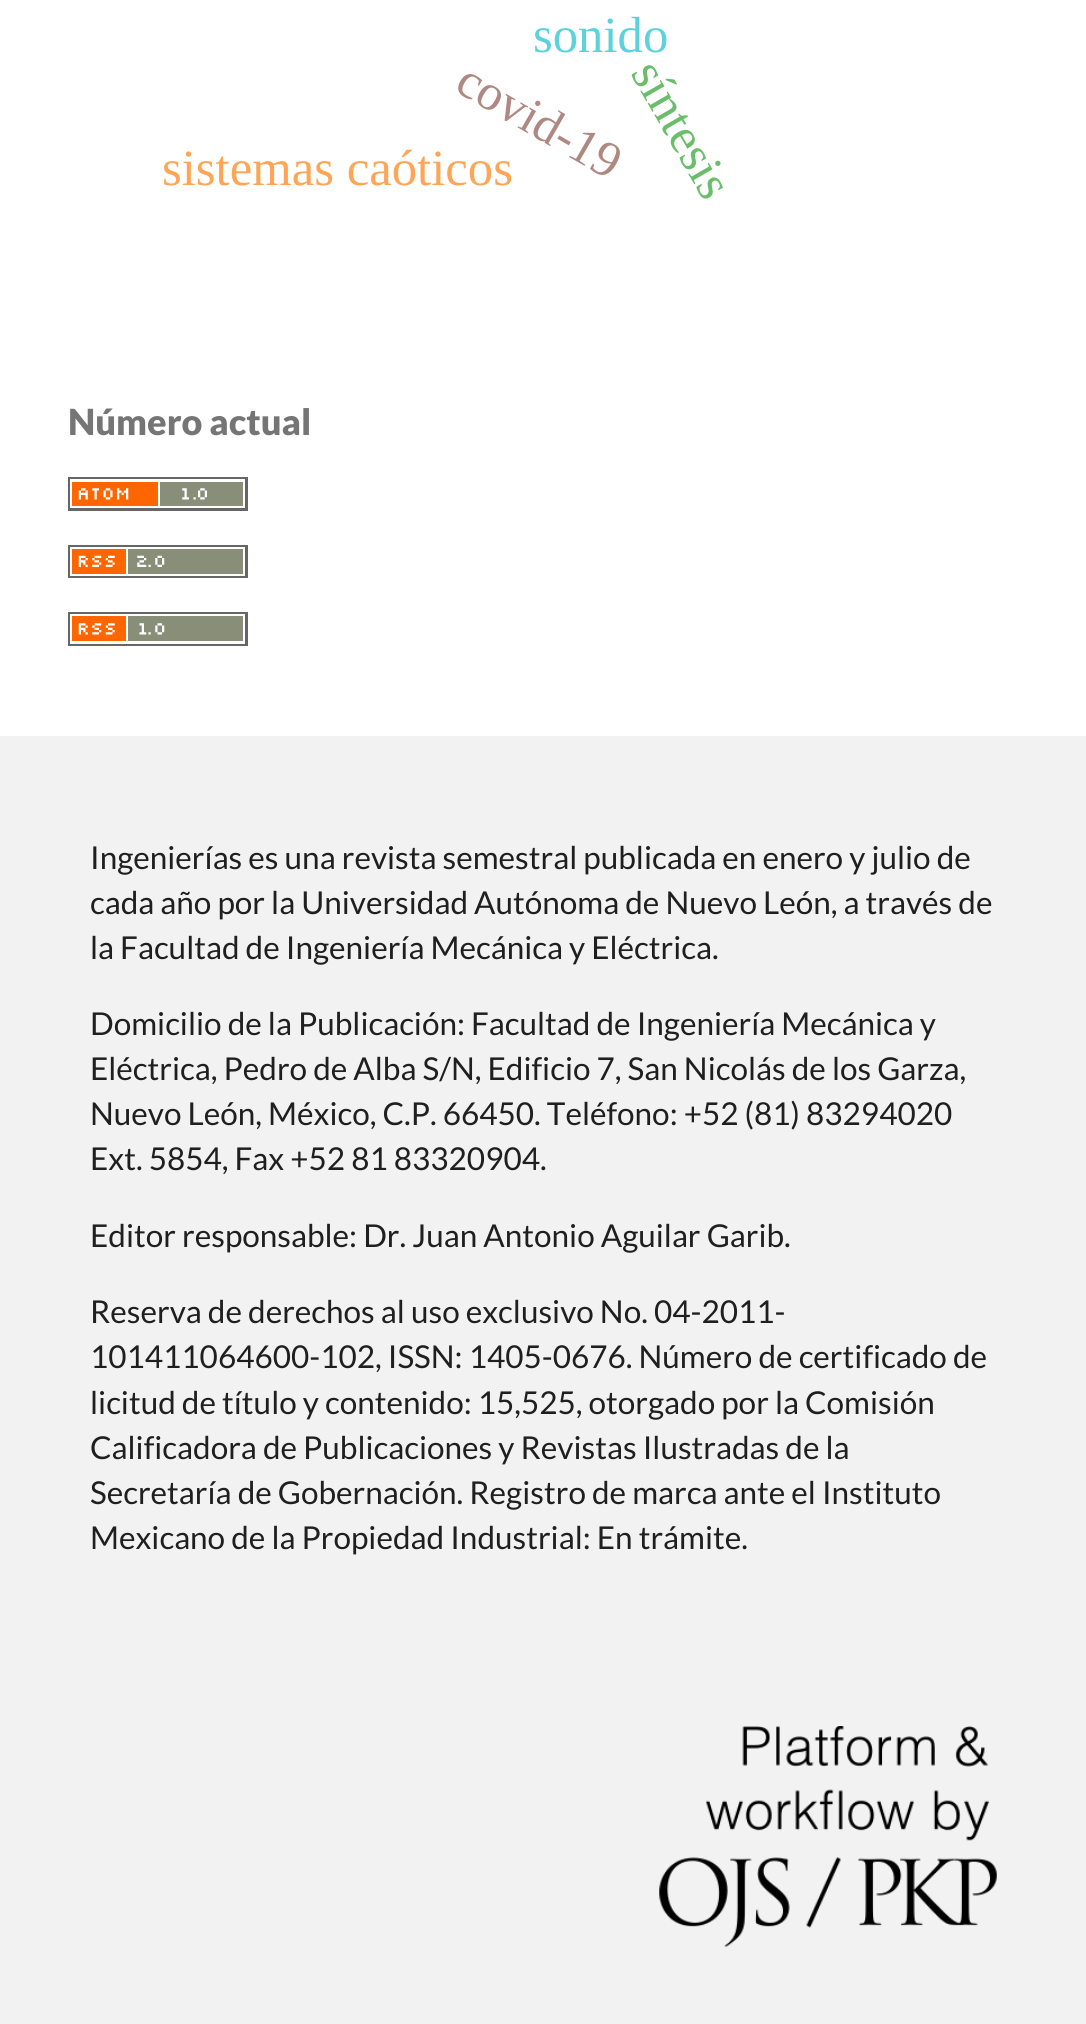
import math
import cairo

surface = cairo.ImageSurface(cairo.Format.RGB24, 1086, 2024)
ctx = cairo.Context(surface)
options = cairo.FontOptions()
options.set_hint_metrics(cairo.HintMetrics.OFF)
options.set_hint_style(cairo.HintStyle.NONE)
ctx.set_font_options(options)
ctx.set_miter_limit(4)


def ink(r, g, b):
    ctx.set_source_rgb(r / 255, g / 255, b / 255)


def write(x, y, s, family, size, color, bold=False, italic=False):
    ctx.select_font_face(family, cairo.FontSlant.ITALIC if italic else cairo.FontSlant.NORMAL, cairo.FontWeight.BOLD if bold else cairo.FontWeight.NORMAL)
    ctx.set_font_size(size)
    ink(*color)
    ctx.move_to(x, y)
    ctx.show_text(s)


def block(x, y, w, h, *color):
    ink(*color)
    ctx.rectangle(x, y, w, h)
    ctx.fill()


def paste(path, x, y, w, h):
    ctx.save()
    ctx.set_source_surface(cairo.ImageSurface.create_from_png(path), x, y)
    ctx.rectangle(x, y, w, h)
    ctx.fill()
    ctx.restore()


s1 = dict(family="Liberation Serif", size=50.75, color=(93, 210, 221))
s2 = dict(family="Liberation Serif", size=50.75, color=(175, 137, 129))
s3 = dict(family="Liberation Serif", size=50.75, color=(255, 165, 86))
s4 = dict(family="Liberation Serif", size=50.75, color=(107, 189, 107))
s5 = dict(family="Lato Black", size=36, color=(117, 117, 117))
s6 = dict(family="Lato", size=31.5, color=(31, 31, 31))

ink(242, 242, 242)
ctx.paint()
block(0, 0, 1086, 736, 255, 255, 255)
write(533, 52, "sonido", **s1)
ctx.save()
ctx.translate(453, 90)
ctx.rotate(30 * math.pi / 180)
write(0, 0, "covid-19", **s2)
ctx.restore()
write(162, 185, "sistemas caóticos", **s3)
ctx.save()
ctx.translate(630, 73)
ctx.rotate(60 * math.pi / 180)
write(0, 0, "síntesis", **s4)
ctx.restore()
write(68, 435, "Número actual", **s5)
paste("pic1.png", 68, 477, 180, 34)
paste("pic2.png", 68, 545, 180, 33)
paste("pic3.png", 68, 612, 180, 34)
write(90, 869, "Ingenierías es una revista semestral publicada en enero y julio de", **s6)
write(90, 914, "cada año por la Universidad Autónoma de Nuevo León, a través de", **s6)
write(90, 959, "la Facultad de Ingeniería Mecánica y Eléctrica.", **s6)
write(90, 1035, "Domicilio de la Publicación: Facultad de Ingeniería Mecánica y", **s6)
write(90, 1080, "Eléctrica, Pedro de Alba S/N, Edificio 7, San Nicolás de los Garza,", **s6)
write(90, 1125, "Nuevo León, México, C.P. 66450. Teléfono: +52 (81) 83294020", **s6)
write(90, 1170, "Ext. 5854, Fax +52 81 83320904.", **s6)
write(90, 1247, "Editor responsable: Dr. Juan Antonio Aguilar Garib.", **s6)
write(90, 1323, "Reserva de derechos al uso exclusivo No. 04-2011-", **s6)
write(90, 1368, "101411064600-102, ISSN: 1405-0676. Número de certificado de", **s6)
write(90, 1414, "licitud de título y contenido: 15,525, otorgado por la Comisión", **s6)
write(90, 1459, "Calificadora de Publicaciones y Revistas Ilustradas de la", **s6)
write(90, 1504, "Secretaría de Gobernación. Registro de marca ante el Instituto", **s6)
write(90, 1549, "Mexicano de la Propiedad Industrial: En trámite.", **s6)
paste("pic4.png", 659, 1726, 338, 221)
surface.write_to_png("screenshot.png")
